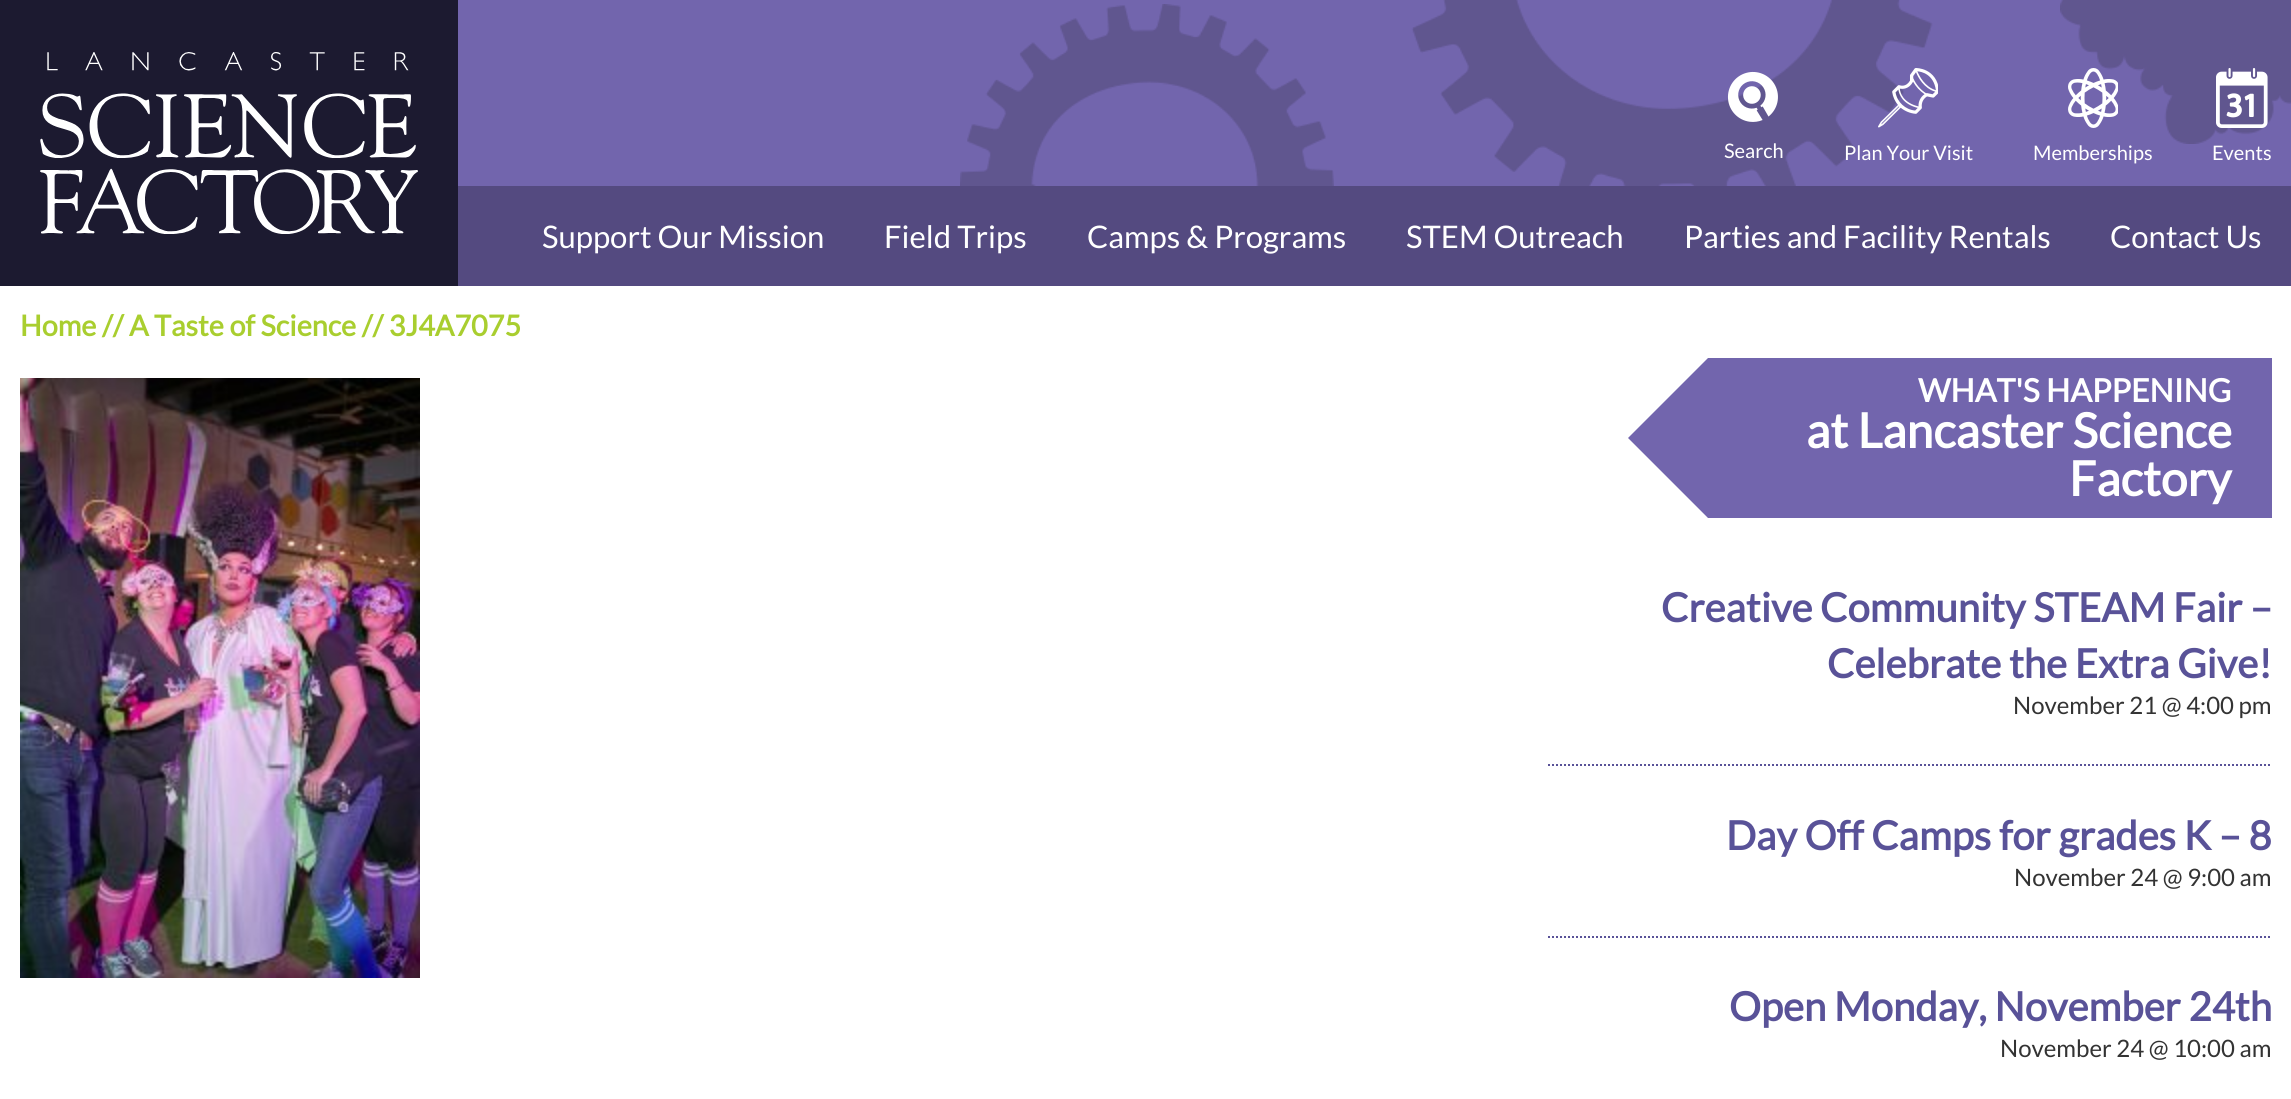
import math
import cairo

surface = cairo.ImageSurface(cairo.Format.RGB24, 2291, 1099)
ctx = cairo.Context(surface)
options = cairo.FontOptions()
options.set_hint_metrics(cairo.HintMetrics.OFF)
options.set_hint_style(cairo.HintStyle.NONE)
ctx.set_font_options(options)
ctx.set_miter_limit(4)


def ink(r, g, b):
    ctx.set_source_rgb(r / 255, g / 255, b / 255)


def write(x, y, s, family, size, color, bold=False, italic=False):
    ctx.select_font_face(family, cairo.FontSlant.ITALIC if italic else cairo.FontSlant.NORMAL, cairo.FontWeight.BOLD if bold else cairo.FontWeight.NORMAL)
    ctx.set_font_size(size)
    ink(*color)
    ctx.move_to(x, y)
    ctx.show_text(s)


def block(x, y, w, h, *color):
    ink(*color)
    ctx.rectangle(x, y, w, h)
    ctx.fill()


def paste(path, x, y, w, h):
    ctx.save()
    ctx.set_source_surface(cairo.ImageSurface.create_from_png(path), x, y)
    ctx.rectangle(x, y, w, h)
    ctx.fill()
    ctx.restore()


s1 = dict(family="Lato", size=20, color=(255, 255, 255))
s2 = dict(family="Lato", size=31.1, color=(255, 255, 255))
s3 = dict(family="Lato", size=28.75, color=(169, 206, 47), bold=True)
s4 = dict(family="Lato", size=32, color=(255, 255, 255), bold=True)
s5 = dict(family="Lato", size=48, color=(255, 255, 255), bold=True)
s6 = dict(family="Lato", size=40, color=(89, 82, 152), bold=True)
s7 = dict(family="Lato", size=24, color=(51, 51, 51))

ink(255, 255, 255)
ctx.paint()
block(458, 0, 1833, 186, 114, 101, 173)
paste("pic1.png", 960, 0, 1331, 186)
block(0, 0, 458, 286, 28, 26, 48)
paste("pic2.png", 40, 52, 378, 182)
paste("pic3.png", 1727, 71, 51, 51)
write(1724, 158, "Search", **s1)
paste("pic4.png", 1878, 68, 60, 60)
write(1844, 160, "Plan Your Visit", **s1)
paste("pic5.png", 2068, 68, 50, 60)
write(2033, 160, "Memberships", **s1)
paste("pic6.png", 2216, 68, 52, 60)
write(2212, 160, "Events", **s1)
block(458, 186, 1833, 100, 84, 74, 128)
write(542, 248, "Support Our Mission", **s2)
write(884, 248, "Field Trips", **s2)
write(1087, 248, "Camps & Programs", **s2)
write(1406, 248, "STEM Outreach", **s2)
write(1684, 248, "Parties and Facility Rentals", **s2)
write(2110, 248, "Contact Us", **s2)
write(20, 336, "Home // A Taste of Science // 3J4A7075", **s3)
paste("pic7.png", 20, 378, 400, 600)
ink(114, 101, 173)
ctx.new_path()
ctx.move_to(1708, 358)
ctx.line_to(1708, 518)
ctx.line_to(1628, 438)
ctx.close_path()
ctx.fill()
block(1708, 358, 564, 160, 114, 101, 173)
write(1918, 402, "WHAT'S HAPPENING", **s4)
write(1806, 448, "at Lancaster Science", **s5)
write(2069, 496, "Factory", **s5)
ctx.new_path()
ctx.move_to(1548, 765)
ctx.line_to(2272, 765)
ink(89, 82, 152)
ctx.set_dash([2, 2])
ctx.stroke()
write(1661, 622, "Creative Community STEAM Fair –", **s6)
write(1827, 678, "Celebrate the Extra Give!", **s6)
write(2013, 714, "November 21 @ 4:00 pm", **s7)
ctx.new_path()
ctx.move_to(1548, 937)
ctx.line_to(2272, 937)
ink(89, 82, 152)
ctx.stroke()
write(1726, 850, "Day Off Camps for grades K – 8", **s6)
write(2014, 886, "November 24 @ 9:00 am", **s7)
write(1729, 1021, "Open Monday, November 24th", **s6)
write(2000, 1057, "November 24 @ 10:00 am", **s7)
surface.write_to_png("screenshot.png")
